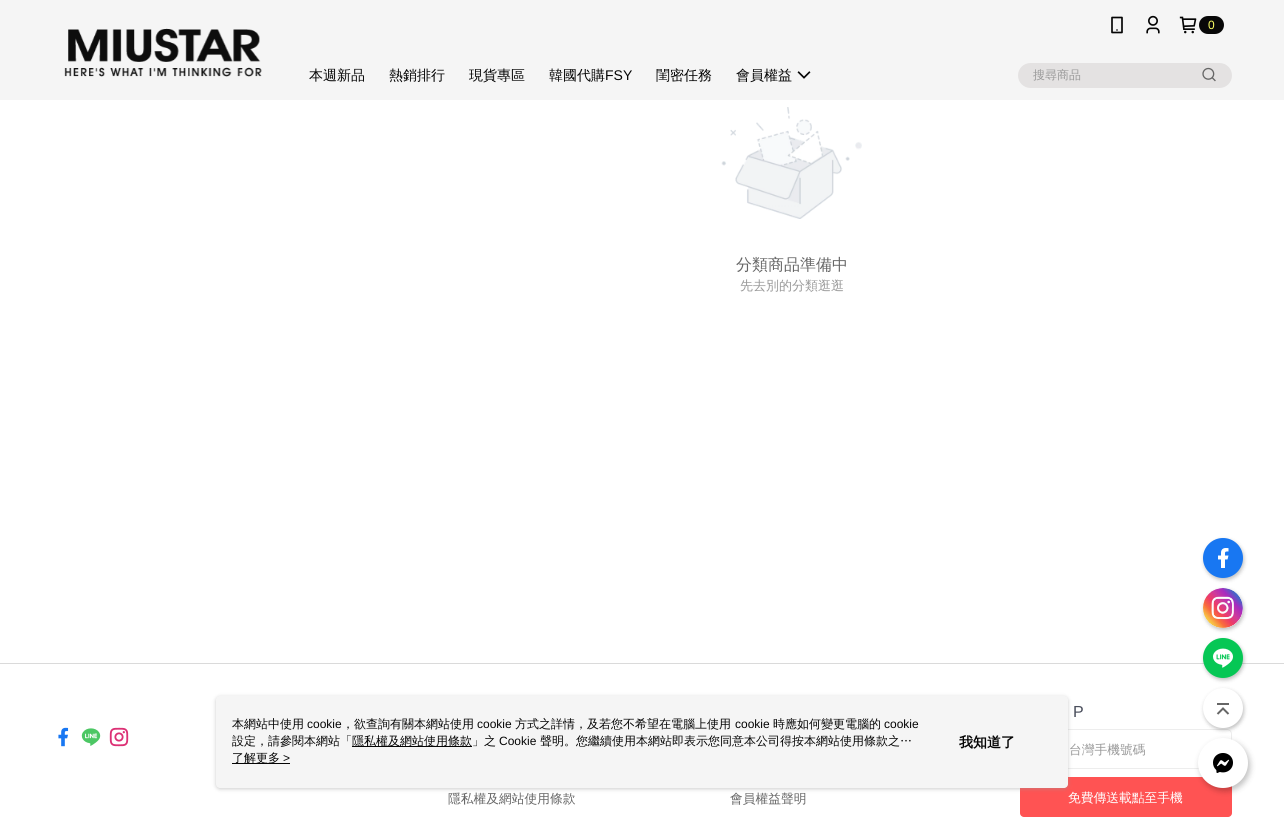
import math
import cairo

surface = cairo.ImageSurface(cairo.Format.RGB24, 1284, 824)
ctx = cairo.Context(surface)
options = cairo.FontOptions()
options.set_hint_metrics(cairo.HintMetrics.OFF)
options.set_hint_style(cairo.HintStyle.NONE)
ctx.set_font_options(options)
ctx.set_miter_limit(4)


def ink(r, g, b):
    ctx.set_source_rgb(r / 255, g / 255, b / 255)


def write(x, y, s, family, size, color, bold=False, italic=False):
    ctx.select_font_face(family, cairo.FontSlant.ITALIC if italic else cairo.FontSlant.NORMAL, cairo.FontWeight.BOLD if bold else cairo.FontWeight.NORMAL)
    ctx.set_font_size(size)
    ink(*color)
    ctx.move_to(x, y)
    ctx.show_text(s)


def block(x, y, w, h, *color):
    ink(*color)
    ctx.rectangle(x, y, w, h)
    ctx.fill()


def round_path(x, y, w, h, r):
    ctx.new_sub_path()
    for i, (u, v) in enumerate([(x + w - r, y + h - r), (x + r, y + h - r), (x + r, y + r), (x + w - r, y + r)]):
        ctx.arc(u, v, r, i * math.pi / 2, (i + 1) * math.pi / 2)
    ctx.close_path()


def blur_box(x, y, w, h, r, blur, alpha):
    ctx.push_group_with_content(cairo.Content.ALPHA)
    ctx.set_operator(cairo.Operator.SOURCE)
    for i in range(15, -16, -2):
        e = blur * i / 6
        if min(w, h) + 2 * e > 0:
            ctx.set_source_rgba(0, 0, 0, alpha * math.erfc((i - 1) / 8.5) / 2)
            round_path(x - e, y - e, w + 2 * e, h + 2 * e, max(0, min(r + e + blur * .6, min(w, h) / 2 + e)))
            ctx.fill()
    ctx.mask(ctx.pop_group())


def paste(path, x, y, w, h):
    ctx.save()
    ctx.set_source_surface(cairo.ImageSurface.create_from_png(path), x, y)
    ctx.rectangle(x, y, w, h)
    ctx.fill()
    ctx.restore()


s1 = dict(family="Liberation Sans", size=12, color=(251, 255, 99))
s2 = dict(family="WenQuanYi Zen Hei Medium", size=14, color=(4, 4, 4))
s3 = dict(family="Liberation Sans", size=14, color=(4, 4, 4))
s4 = dict(family="WenQuanYi Zen Hei Medium", size=12, color=(153, 153, 153))
s5 = dict(family="WenQuanYi Zen Hei Medium", size=16, color=(102, 102, 102))
s6 = dict(family="WenQuanYi Zen Hei Medium", size=13, color=(153, 153, 153))
s7 = dict(family="Liberation Sans", size=16, color=(74, 78, 92))
s8 = dict(family="WenQuanYi Zen Hei Medium", size=12.75, color=(153, 153, 153))
s9 = dict(family="WenQuanYi Zen Hei Medium", size=12.75, color=(255, 255, 255))
s10 = dict(family="WenQuanYi Zen Hei Medium", size=12.75, color=(102, 102, 102))
s11 = dict(family="WenQuanYi Zen Hei Medium", size=12, color=(4, 4, 4))
s12 = dict(family="Liberation Sans", size=12, color=(4, 4, 4))
s13 = dict(family="WenQuanYi Zen Hei", size=14, color=(4, 4, 4), bold=True)

ink(255, 255, 255)
ctx.paint()
block(0, 0, 1284, 100, 245, 245, 245)
paste("pic1.png", 64, 28, 198, 49)
paste("pic2.png", 1111, 16, 12, 18)
paste("pic3.png", 1146, 15, 14, 19)
paste("pic4.png", 1179, 16, 18, 18)
ink(8, 8, 8)
round_path(1199, 16, 25, 18, 9)
ctx.fill()
write(1208, 29, "0", **s1)
write(309, 80, "本週新品", **s2)
write(389, 80, "熱銷排行", **s2)
write(469, 80, "現貨專區", **s2)
write(549, 80, "韓國代購", **s2)
write(605, 80, "FSY", **s3)
write(656, 80, "閨密任務", **s2)
write(736, 80, "會員權益", **s2)
paste("pic5.png", 797, 71, 14, 8)
ink(228, 226, 226)
round_path(1018, 63, 214, 25, 12.5)
ctx.fill()
write(1033, 79, "搜尋商品", **s4)
paste("pic6.png", 1202, 67, 14, 15)
ink(0, 0, 0)
blur_box(1204, 540, 40, 40, 20, 2, 0.25)
ink(24, 119, 242)
ctx.arc(1223, 558, 20, 0, 2 * math.pi)
ctx.fill()
paste("pic7.png", 1218, 548, 11, 20)
ink(0, 0, 0)
blur_box(1204, 590, 40, 40, 20, 2, 0.25)
ink(255, 255, 255)
ctx.arc(1223, 608, 20, 0, 2 * math.pi)
ctx.fill()
paste("pic8.png", 1203, 588, 40, 40)
block(0, 663, 1284, 1, 218, 218, 218)
ink(0, 0, 0)
blur_box(1204, 640, 40, 40, 20, 2, 0.25)
ink(6, 199, 85)
ctx.arc(1223, 658, 20, 0, 2 * math.pi)
ctx.fill()
paste("pic9.png", 1213, 648, 20, 20)
round_path(1020.5, 729.5, 211, 39, 4.5)
ink(237, 237, 237)
ctx.set_line_width(1)
ctx.stroke()
ink(0, 0, 0)
blur_box(1204, 690, 40, 40, 20, 2, 0.25)
ink(255, 255, 255)
ctx.arc(1223, 708, 20, 0, 2 * math.pi)
ctx.fill()
paste("pic10.png", 1216, 703, 14, 12)
ink(255, 83, 83)
round_path(1020, 777, 212, 40, 4)
ctx.fill()
ink(0, 0, 0)
blur_box(1200, 741, 50, 50, 25, 3, 0.25)
ink(255, 255, 255)
ctx.arc(1223, 763, 25, 0, 2 * math.pi)
ctx.fill()
paste("pic11.png", 1213, 753, 20, 20)
paste("pic12.png", 721, 107, 141, 112)
write(736, 270, "分類商品準備中", **s5)
write(740, 290, "先去別的分類逛逛", **s6)
paste("pic13.png", 58, 727, 11, 20)
paste("pic14.png", 81, 728, 20, 18)
paste("pic15.png", 109, 727, 20, 20)
write(1073, 717, "P", **s7)
write(1069, 754, "台灣手機號碼", **s8)
write(1068, 802, "免費傳送載點至手機", **s9)
write(448, 803, "隱私權及網站使用條款", **s10)
write(730, 803, "會員權益聲明", **s10)
ink(151, 151, 151)
blur_box(216, 697, 852, 92, 4, 2, 0.5)
ink(245, 245, 245)
round_path(216, 696, 852, 92, 4)
ctx.fill()
write(232, 728, "本網站中使用", **s11)
write(307, 728, "cookie", **s12)
write(342, 728, "，欲查詢有關本網站使用", **s11)
write(477, 728, "cookie", **s12)
write(515, 728, "方式之詳情，及若您不希望在電腦上使用", **s11)
write(735, 728, "cookie", **s12)
write(773, 728, "時應如何變更電腦的", **s11)
write(884, 728, "cookie", **s12)
write(232, 745, "設定，請參閱本網站「", **s11)
block(352, 746, 120, 1, 4, 4, 4)
write(352, 745, "隱私權及網站使用條款」之", **s11)
write(499, 745, "Cookie", **s12)
write(540, 745, "聲明。您繼續使用本網站即表示您同意本公司得按本網站使用條款之…", **s11)
block(232, 763, 58, 1, 4, 4, 4)
write(232, 762, "了解更多", **s11)
write(283, 762, ">", **s12)
write(959, 747, "我知道了", **s13)
surface.write_to_png("screenshot.png")
